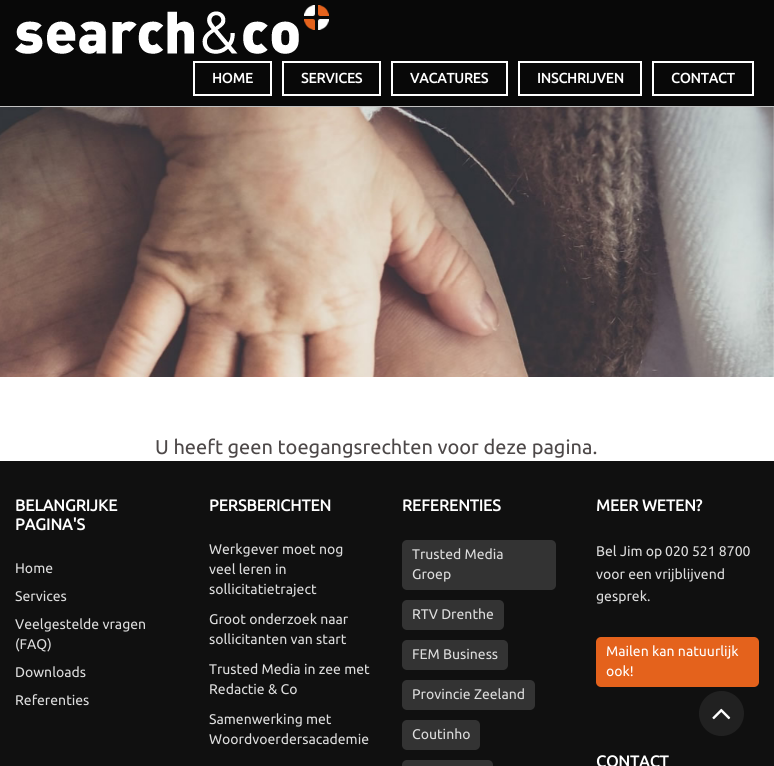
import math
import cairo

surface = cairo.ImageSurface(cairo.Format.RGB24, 774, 766)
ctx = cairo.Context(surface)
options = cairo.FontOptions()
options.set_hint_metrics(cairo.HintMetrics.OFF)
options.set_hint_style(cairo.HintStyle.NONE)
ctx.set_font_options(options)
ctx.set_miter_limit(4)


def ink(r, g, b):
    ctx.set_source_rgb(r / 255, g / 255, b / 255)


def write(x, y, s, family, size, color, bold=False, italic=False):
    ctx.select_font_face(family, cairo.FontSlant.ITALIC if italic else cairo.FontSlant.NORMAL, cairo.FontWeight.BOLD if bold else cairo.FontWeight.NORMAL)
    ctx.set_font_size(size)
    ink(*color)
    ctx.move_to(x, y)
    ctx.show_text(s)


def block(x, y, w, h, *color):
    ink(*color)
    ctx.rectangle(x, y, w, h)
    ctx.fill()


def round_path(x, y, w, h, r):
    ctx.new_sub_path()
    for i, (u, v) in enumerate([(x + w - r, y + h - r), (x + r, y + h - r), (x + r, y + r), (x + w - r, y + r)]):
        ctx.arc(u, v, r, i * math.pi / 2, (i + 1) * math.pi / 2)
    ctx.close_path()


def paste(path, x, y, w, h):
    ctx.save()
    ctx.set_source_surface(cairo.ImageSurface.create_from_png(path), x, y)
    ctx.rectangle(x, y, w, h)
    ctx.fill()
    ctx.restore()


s1 = dict(family="Ubuntu", size=14, color=(255, 255, 255), bold=True)
s2 = dict(family="Ubuntu", size=20, color=(77, 72, 72))
s3 = dict(family="Ubuntu", size=16, color=(255, 255, 255), bold=True)
s4 = dict(family="Ubuntu", size=14, color=(221, 221, 221))
s5 = dict(family="Ubuntu", size=14, color=(255, 255, 255))

ink(255, 255, 255)
ctx.paint()
paste("pic1.png", 0, 107, 774, 270)
block(0, 0, 774, 106, 8, 8, 8)
block(0, 106, 774, 1, 194, 194, 194)
paste("pic2.png", 15, 5, 314, 49)
ctx.rectangle(194, 62, 77, 33)
ink(255, 255, 255)
ctx.stroke()
write(212, 83, "HOME", **s1)
ctx.rectangle(283, 62, 97, 33)
ctx.stroke()
write(301, 83, "SERVICES", **s1)
ctx.rectangle(392, 62, 115, 33)
ctx.stroke()
write(410, 83, "VACATURES", **s1)
ctx.rectangle(519, 62, 122, 33)
ctx.stroke()
write(537, 83, "INSCHRIJVEN", **s1)
ctx.rectangle(653, 62, 100, 33)
ctx.stroke()
write(671, 83, "CONTACT", **s1)
write(155, 454, "U heeft geen toegangsrechten voor deze pagina.", **s2)
block(0, 461, 774, 305, 16, 16, 16)
write(15, 511, "BELANGRIJKE", **s3)
write(15, 530, "PAGINA'S", **s3)
write(15, 573, "Home", **s4)
write(15, 601, "Services", **s4)
write(15, 629, "Veelgestelde vragen", **s4)
write(15, 649, "(FAQ)", **s4)
write(15, 677, "Downloads", **s4)
write(15, 705, "Referenties", **s4)
write(209, 511, "PERSBERICHTEN", **s3)
write(209, 554, "Werkgever moet nog", **s4)
write(209, 574, "veel leren in", **s4)
write(209, 594, "sollicitatietraject", **s4)
write(209, 624, "Groot onderzoek naar", **s4)
write(209, 644, "sollicitanten van start", **s4)
write(209, 674, "Trusted Media in zee met", **s4)
write(209, 694, "Redactie & Co", **s4)
write(209, 724, "Samenwerking met", **s4)
write(209, 744, "Woordvoerdersacademie", **s4)
write(402, 511, "REFERENTIES", **s3)
ink(51, 51, 51)
round_path(402, 540, 154, 50, 5)
ctx.fill()
write(412, 559, "Trusted Media", **s4)
write(412, 579, "Groep", **s4)
ink(51, 51, 51)
round_path(402, 600, 102, 30, 5)
ctx.fill()
write(412, 619, "RTV Drenthe", **s4)
ink(51, 51, 51)
round_path(402, 640, 106, 30, 5)
ctx.fill()
write(412, 659, "FEM Business", **s4)
ink(51, 51, 51)
round_path(402, 680, 133, 30, 5)
ctx.fill()
write(412, 699, "Provincie Zeeland", **s4)
ink(51, 51, 51)
round_path(402, 720, 78, 30, 5)
ctx.fill()
write(412, 739, "Coutinho", **s4)
ink(51, 51, 51)
round_path(402, 760, 91, 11, 5)
ctx.fill()
write(596, 511, "MEER WETEN?", **s3)
write(596, 556, "Bel Jim op", **s4)
write(665, 556, "020 521 8700", **s4)
write(596, 579, "voor een vrijblijvend", **s4)
write(596, 601, "gesprek.", **s4)
ink(228, 98, 28)
round_path(596, 637, 163, 50, 5)
ctx.fill()
write(606, 656, "Mailen kan natuurlijk", **s5)
write(606, 676, "ook!", **s5)
write(596, 767, "CONTACT", **s3)
ink(33, 33, 33)
ctx.new_path()
ctx.arc(721.5, 713.5, 22.5, 0, 2 * math.pi)
ctx.fill()
paste("pic3.png", 712, 708, 19, 12)
surface.write_to_png("screenshot.png")
